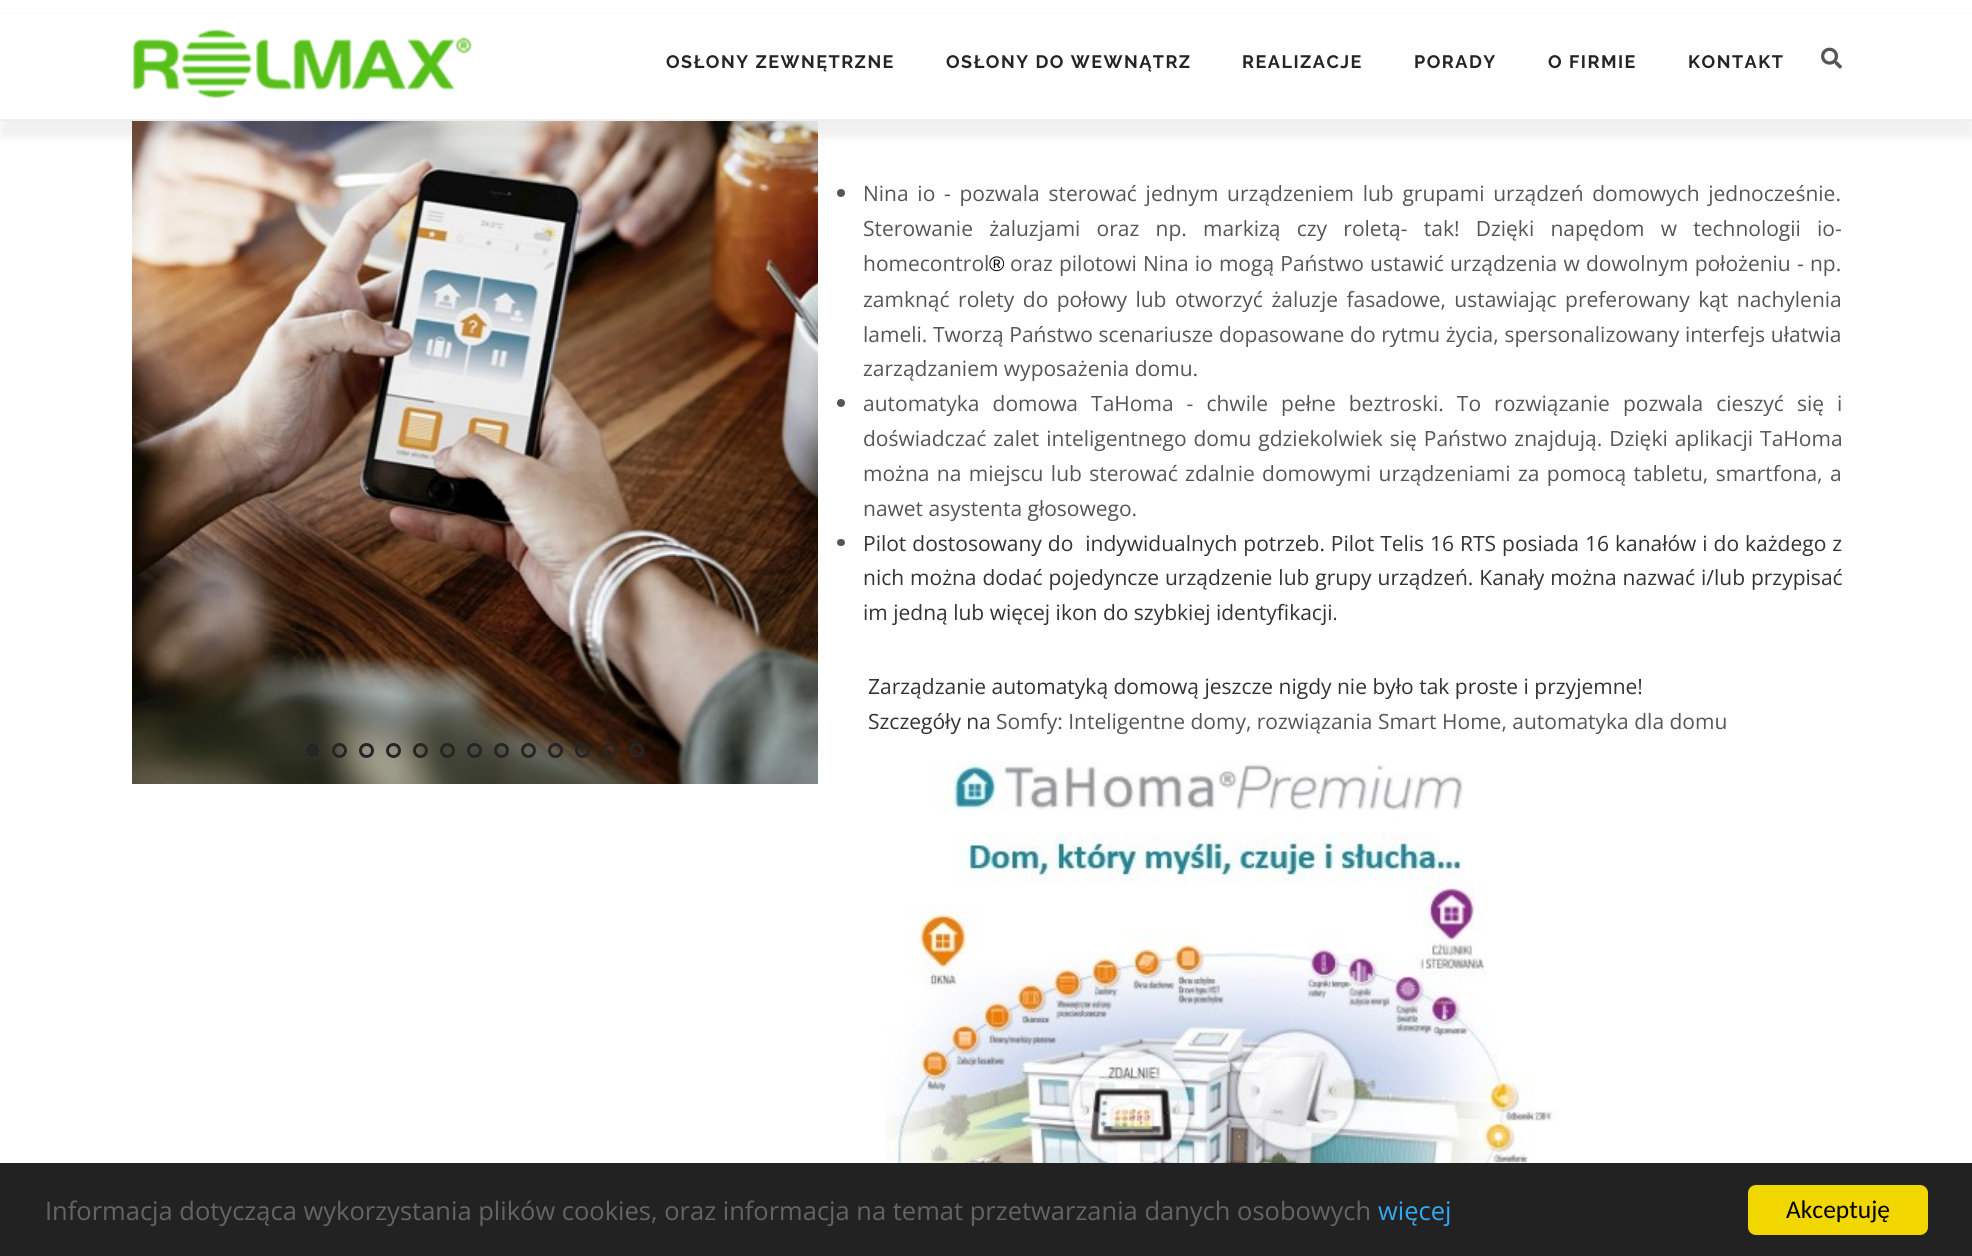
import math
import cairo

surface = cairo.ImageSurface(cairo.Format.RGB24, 1972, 1256)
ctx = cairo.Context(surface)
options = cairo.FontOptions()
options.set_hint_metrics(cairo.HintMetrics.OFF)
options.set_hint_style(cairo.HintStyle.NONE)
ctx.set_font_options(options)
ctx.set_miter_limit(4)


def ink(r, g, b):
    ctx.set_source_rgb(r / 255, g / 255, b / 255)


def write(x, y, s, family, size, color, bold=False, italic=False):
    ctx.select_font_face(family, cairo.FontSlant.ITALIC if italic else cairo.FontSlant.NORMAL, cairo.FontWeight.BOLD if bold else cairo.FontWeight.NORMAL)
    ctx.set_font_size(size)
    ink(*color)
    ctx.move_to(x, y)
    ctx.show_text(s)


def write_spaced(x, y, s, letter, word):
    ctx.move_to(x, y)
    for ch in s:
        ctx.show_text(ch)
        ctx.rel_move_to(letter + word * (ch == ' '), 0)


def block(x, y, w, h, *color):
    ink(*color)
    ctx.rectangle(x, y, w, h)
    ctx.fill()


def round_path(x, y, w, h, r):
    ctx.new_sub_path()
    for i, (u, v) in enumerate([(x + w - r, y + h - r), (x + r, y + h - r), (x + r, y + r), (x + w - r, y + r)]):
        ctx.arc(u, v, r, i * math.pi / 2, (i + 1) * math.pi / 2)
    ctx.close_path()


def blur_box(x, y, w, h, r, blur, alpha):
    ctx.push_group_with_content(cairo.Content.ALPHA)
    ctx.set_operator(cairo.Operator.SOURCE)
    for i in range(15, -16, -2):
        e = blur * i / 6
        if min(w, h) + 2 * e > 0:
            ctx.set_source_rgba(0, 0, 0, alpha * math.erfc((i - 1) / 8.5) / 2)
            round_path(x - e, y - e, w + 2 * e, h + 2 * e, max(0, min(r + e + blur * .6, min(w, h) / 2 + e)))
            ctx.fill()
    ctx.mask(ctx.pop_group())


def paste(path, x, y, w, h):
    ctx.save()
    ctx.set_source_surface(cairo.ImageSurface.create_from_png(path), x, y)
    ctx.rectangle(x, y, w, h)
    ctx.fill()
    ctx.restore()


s1 = dict(family="Open Sans", size=21, color=(86, 86, 86))
s2 = dict(family="Liberation Sans", size=21, color=(0, 0, 0))
s3 = dict(family="Open Sans", size=21, color=(51, 51, 51))
s4 = dict(family="Open Sans", size=25.5, color=(100, 100, 100))
s5 = dict(family="Open Sans", size=25.5, color=(49, 168, 240))
s6 = dict(family="Carlito", size=25.5, color=(0, 0, 0))

ink(255, 255, 255)
ctx.paint()
paste("pic3.png", 132, 121, 686, 663)
ink(0, 0, 0)
blur_box(0, 18, 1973, 120, 0, 4.5, 0.06)
block(0, 14, 1972, 105, 255, 255, 255)
block(0, 119, 1972, 2, 238, 238, 238)
paste("pic1.png", 133, 29, 339, 69)
ctx.select_font_face("Raleway", cairo.FontSlant.NORMAL, cairo.FontWeight.BOLD)
ctx.set_font_size(18)
ink(37, 37, 37)
write_spaced(666, 68, "OSŁONY ZEWNĘTRZNE", 1.5, 0)
write_spaced(946, 68, "OSŁONY DO WEWNĄTRZ", 1.5, 0)
write_spaced(1242, 68, "REALIZACJE", 1.5, 0)
write_spaced(1414, 68, "PORADY", 1.5, 0)
write_spaced(1548, 68, "O FIRMIE", 1.5, 0)
write_spaced(1688, 68, "KONTAKT", 1.5, 0)
paste("pic2.png", 1821, 47, 21, 22)
ctx.arc(312.5, 750.5, 6, 0, 2 * math.pi)
ctx.set_line_width(3)
ctx.stroke()
ctx.save()
round_path(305, 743, 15, 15, 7.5)
ctx.clip()
ink(204, 204, 204)
blur_box(305, 743, 15, 15, 7.5, 1, 1)
ctx.restore()
ctx.arc(312.5, 750.5, 7.5, 0, 2 * math.pi)
ctx.fill()
ctx.arc(339.5, 750.5, 6, 0, 2 * math.pi)
ctx.stroke()
ctx.arc(366.5, 750.5, 6, 0, 2 * math.pi)
ctx.stroke()
ctx.arc(393.5, 750.5, 6, 0, 2 * math.pi)
ctx.stroke()
ctx.arc(420.5, 750.5, 6, 0, 2 * math.pi)
ctx.stroke()
ctx.arc(447.5, 750.5, 6, 0, 2 * math.pi)
ctx.stroke()
ctx.arc(474.5, 750.5, 6, 0, 2 * math.pi)
ctx.stroke()
ctx.arc(501.5, 750.5, 6, 0, 2 * math.pi)
ctx.stroke()
ctx.arc(528.5, 750.5, 6, 0, 2 * math.pi)
ctx.stroke()
ctx.arc(555.5, 750.5, 6, 0, 2 * math.pi)
ctx.stroke()
ctx.arc(582.5, 750.5, 6, 0, 2 * math.pi)
ctx.stroke()
ctx.arc(609.5, 750.5, 6, 0, 2 * math.pi)
ctx.stroke()
ctx.arc(636.5, 750.5, 6, 0, 2 * math.pi)
ctx.stroke()
ink(86, 86, 86)
ctx.arc(841, 193, 4, 0, 2 * math.pi)
ctx.fill()
ctx.select_font_face("Open Sans")
ctx.set_font_size(21)
write_spaced(863, 201, "Nina io - pozwala sterować jednym urządzeniem lub grupami urządzeń domowych jednocześnie.", 0, 3.25)
write_spaced(863, 236, "Sterowanie żaluzjami oraz np. markizą czy roletą- tak! Dzięki napędom w technologii io-", 0, 10.75)
write(863, 271, "homecontrol", **s1)
write(989, 271, "®", **s2)
ctx.select_font_face("Open Sans")
ink(86, 86, 86)
write_spaced(1010, 271, "oraz pilotowi Nina io mogą Państwo ustawić urządzenia w dowolnym położeniu - np.", 0, 0.75)
write_spaced(863, 307, "zamknąć rolety do połowy lub otworzyć żaluzje fasadowe, ustawiając preferowany kąt nachylenia", 0, 3)
write_spaced(863, 342, "lameli. Tworzą Państwo scenariusze dopasowane do rytmu życia, spersonalizowany interfejs ułatwia", 0, 0.25)
write(863, 376, "zarządzaniem wyposażenia domu.", **s1)
ctx.new_path()
ctx.arc(841, 403, 4, 0, 2 * math.pi)
ctx.fill()
write_spaced(863, 411, "automatyka domowa TaHoma - chwile pełne beztroski. To rozwiązanie pozwala cieszyć się i", 0, 7.6)
write_spaced(863, 446, "doświadczać zalet inteligentnego domu gdziekolwiek się Państwo znajdują. Dzięki aplikacji TaHoma", 0, 1.5)
write_spaced(863, 481, "można na miejscu lub sterować zdalnie domowymi urządzeniami za pomocą tabletu, smartfona, a", 0, 1.9)
write(863, 516, "nawet asystenta głosowego.", **s1)
round_path(837, 539, 8, 7, 3.5)
ctx.fill()
ink(51, 51, 51)
write_spaced(863, 551, "Pilot dostosowany do  indywidualnych potrzeb. Pilot Telis 16 RTS posiada 16 kanałów i do każdego z", 0, 0.5)
write_spaced(863, 585, "nich można dodać pojedyncze urządzenie lub grupy urządzeń. Kanały można nazwać i/lub przypisać", 0, 0.5)
write(863, 620, "im jedną lub więcej ikon do szybkiej identyfikacji.", **s3)
write(868, 694, "Zarządzanie automatyką domową jeszcze nigdy nie było tak proste i przyjemne!", **s3)
write(868, 729, "Szczegóły na", **s3)
write(996, 729, "Somfy: Inteligentne domy, rozwiązania Smart Home, automatyka dla domu", **s1)
paste("pic4.png", 885, 761, 674, 402)
block(0, 1163, 1972, 93, 34, 34, 34)
write(45, 1220, "Informacja dotycząca wykorzystania plików cookies, oraz informacja na temat przetwarzania danych osobowych", **s4)
write(1378, 1220, "więcej", **s5)
ink(241, 214, 0)
round_path(1748, 1185, 180, 50, 8)
ctx.fill()
write(1786, 1218, "Akceptuję", **s6)
surface.write_to_png("screenshot.png")
